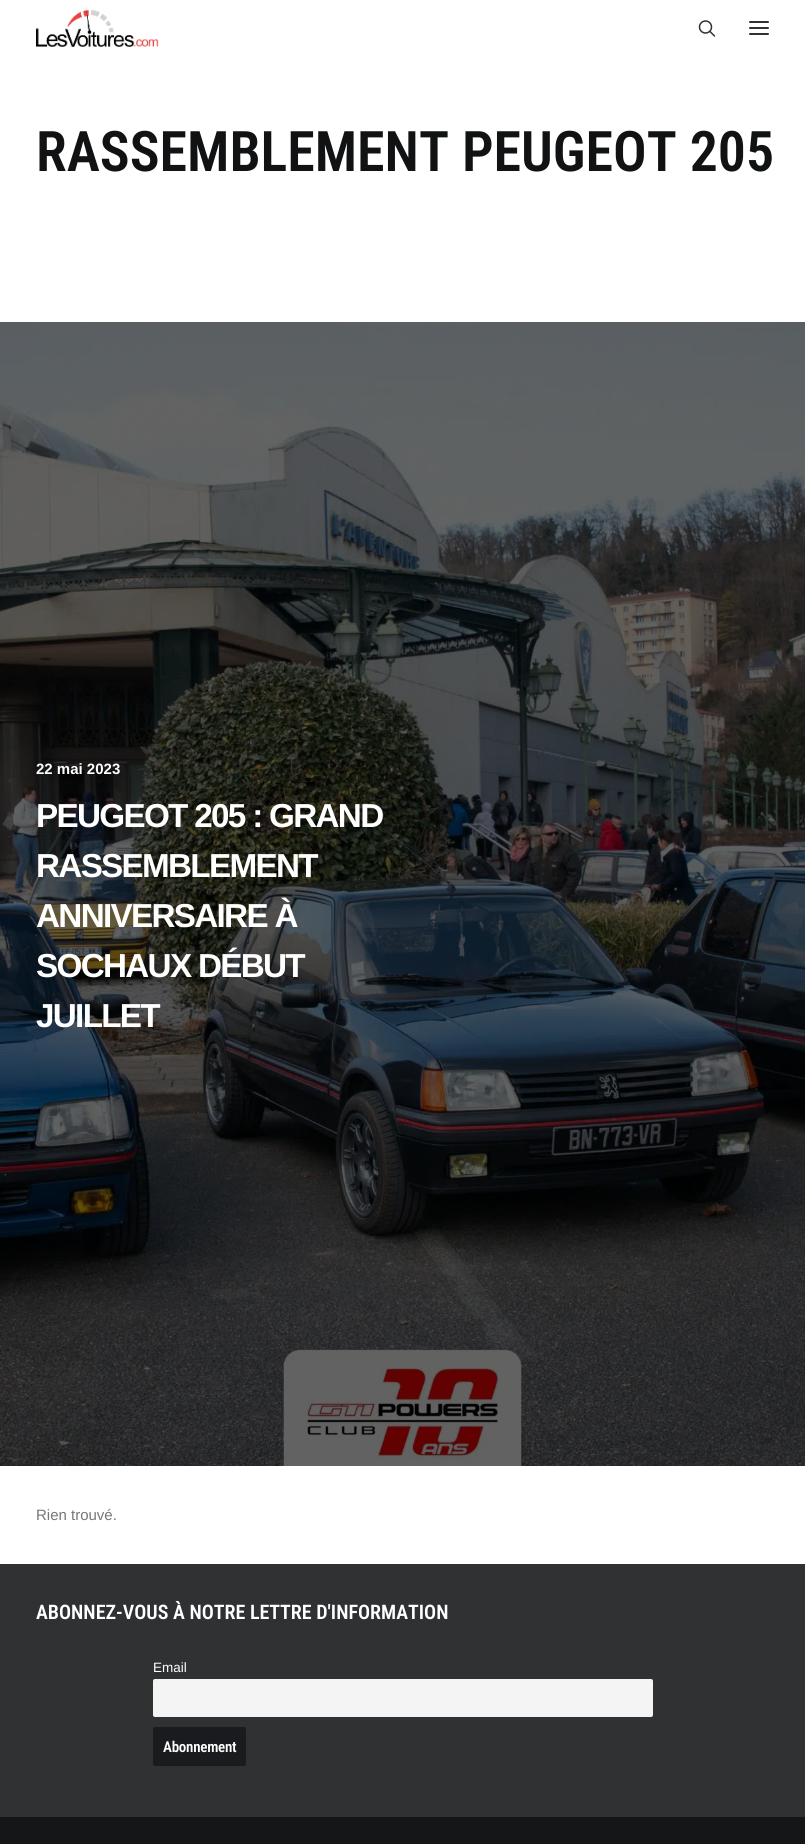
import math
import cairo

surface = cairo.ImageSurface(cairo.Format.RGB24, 805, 1844)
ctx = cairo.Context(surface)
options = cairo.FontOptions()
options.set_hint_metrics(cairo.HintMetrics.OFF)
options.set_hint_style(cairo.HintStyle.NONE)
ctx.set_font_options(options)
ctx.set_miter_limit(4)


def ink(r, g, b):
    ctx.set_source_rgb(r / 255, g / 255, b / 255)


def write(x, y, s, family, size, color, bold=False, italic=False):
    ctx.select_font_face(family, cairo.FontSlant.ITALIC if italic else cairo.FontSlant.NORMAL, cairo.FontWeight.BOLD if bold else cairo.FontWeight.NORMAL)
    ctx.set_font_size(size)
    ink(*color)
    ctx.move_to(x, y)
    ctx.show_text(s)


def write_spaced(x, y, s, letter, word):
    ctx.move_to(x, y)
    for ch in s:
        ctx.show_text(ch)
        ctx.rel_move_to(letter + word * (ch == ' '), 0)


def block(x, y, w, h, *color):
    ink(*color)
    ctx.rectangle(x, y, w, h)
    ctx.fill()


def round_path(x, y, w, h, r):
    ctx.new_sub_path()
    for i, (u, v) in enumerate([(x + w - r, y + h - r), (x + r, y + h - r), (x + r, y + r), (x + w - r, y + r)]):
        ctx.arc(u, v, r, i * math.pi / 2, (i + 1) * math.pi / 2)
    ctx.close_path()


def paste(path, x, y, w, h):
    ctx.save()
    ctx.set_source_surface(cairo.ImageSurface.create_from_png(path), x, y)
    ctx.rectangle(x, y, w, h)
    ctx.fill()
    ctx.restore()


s1 = dict(family="Roboto Condensed SemiBold", size=55.9, color=(16, 18, 19))
s2 = dict(family="Liberation Sans", size=15, color=(255, 255, 255), bold=True)
s3 = dict(family="Liberation Sans", size=15, color=(119, 119, 119))
s4 = dict(family="Roboto Condensed SemiBold", size=20, color=(255, 255, 255))
s5 = dict(family="Liberation Sans", size=13.5, color=(255, 255, 255))

ink(20, 22, 24)
ctx.paint()
block(0, 0, 805, 322, 255, 255, 255)
paste("pic1.png", 36, 9, 123, 38)
paste("pic2.png", 698, 20, 18, 17)
ink(48, 49, 51)
round_path(749, 27, 20, 2, 1)
ctx.fill()
round_path(749, 21, 20, 2, 1)
ctx.fill()
round_path(749, 33, 20, 2, 1)
ctx.fill()
write(36, 171, "RASSEMBLEMENT PEUGEOT 205", **s1)
block(0, 1466, 805, 98, 255, 255, 255)
paste("pic3.png", 0, 322, 805, 1144)
write(36, 774, "22 mai 2023", **s2)
ctx.set_font_size(33.25)
write_spaced(36, 827, "PEUGEOT 205 : GRAND", -1.7, 0)
write_spaced(36, 877, "RASSEMBLEMENT", -1.7, 0)
write_spaced(36, 927, "ANNIVERSAIRE À", -1.7, 0)
write_spaced(36, 977, "SOCHAUX DÉBUT", -1.7, 0)
write_spaced(36, 1027, "JUILLET", -1.7, 0)
write(36, 1520, "Rien trouvé.", **s3)
block(0, 1564, 805, 253, 48, 49, 51)
write(36, 1619, "ABONNEZ-VOUS À NOTRE LETTRE D'INFORMATION", **s4)
write(153, 1672, "Email", **s5)
ink(244, 244, 244)
round_path(153, 1679, 500, 38, 2)
ctx.fill()
ink(25, 27, 30)
round_path(153, 1727, 93, 39, 2)
ctx.fill()
ctx.select_font_face("Roboto Condensed SemiBold")
ctx.set_font_size(15)
ink(255, 255, 255)
write_spaced(163, 1752, "Abonnement", -0.25, 0)
surface.write_to_png("screenshot.png")
